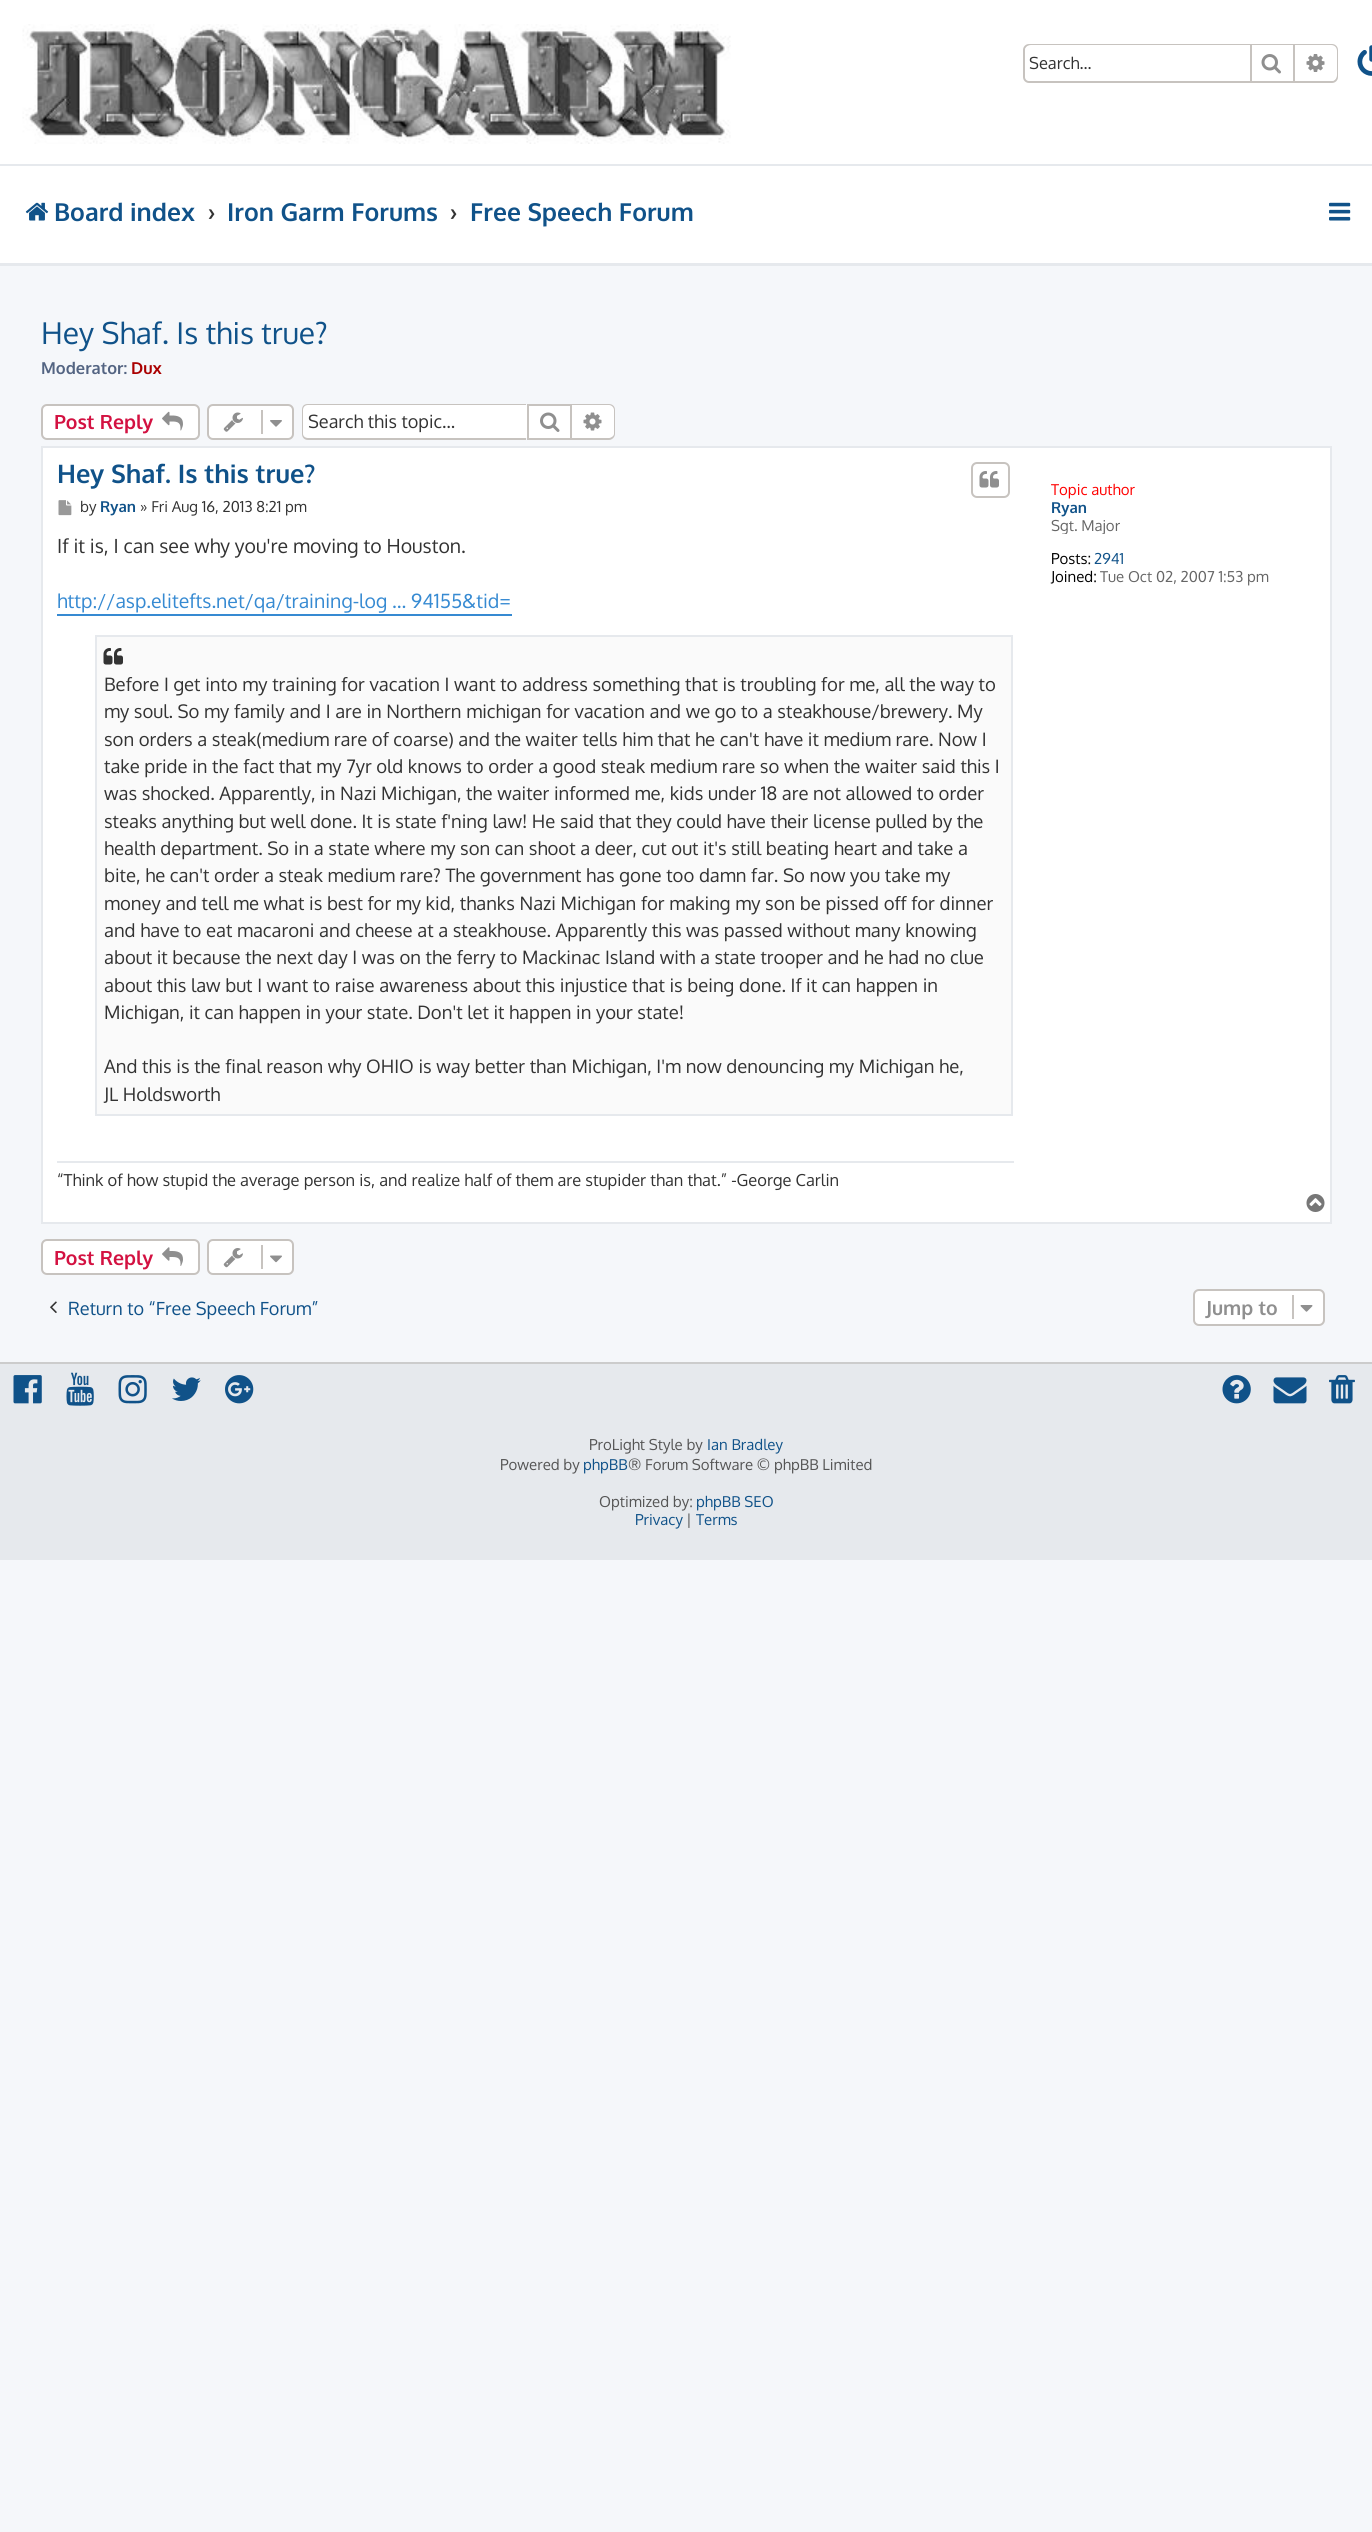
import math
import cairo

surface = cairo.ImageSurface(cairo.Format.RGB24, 1372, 2532)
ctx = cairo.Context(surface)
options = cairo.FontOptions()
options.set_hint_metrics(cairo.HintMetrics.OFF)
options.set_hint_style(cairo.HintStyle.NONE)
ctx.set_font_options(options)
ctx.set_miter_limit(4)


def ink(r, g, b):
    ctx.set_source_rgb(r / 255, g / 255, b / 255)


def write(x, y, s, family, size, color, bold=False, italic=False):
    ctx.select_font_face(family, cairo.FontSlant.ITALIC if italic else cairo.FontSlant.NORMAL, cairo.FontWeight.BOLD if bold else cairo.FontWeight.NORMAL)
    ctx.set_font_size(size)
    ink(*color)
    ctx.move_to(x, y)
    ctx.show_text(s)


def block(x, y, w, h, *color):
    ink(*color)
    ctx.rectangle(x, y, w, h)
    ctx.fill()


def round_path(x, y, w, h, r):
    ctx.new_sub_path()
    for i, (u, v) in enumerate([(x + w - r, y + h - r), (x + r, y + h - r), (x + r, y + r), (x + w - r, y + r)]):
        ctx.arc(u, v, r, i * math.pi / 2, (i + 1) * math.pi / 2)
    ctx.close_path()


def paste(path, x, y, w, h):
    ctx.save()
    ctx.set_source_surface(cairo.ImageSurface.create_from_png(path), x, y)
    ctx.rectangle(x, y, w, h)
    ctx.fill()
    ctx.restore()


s1 = dict(family="Oxygen", size=16.5, color=(51, 51, 51))
s2 = dict(family="Oxygen", size=24.75, color=(16, 82, 137), bold=True)
s3 = dict(family="Oxygen", size=24.75, color=(51, 51, 51), bold=True)
s4 = dict(family="Oxygen", size=30, color=(16, 82, 137))
s5 = dict(family="Oxygen", size=16.5, color=(83, 100, 130), bold=True)
s6 = dict(family="Oxygen", size=16.5, color=(170, 0, 0), bold=True)
s7 = dict(family="Oxygen", size=19.5, color=(211, 17, 65), bold=True)
s8 = dict(family="Oxygen", size=18.1, color=(51, 51, 51))
s9 = dict(family="Oxygen", size=25.5, color=(16, 82, 137), bold=True)
s10 = dict(family="Oxygen", size=15, color=(51, 51, 51))
s11 = dict(family="Oxygen", size=15, color=(16, 82, 137), bold=True)
s12 = dict(family="Oxygen", size=19.5, color=(51, 51, 51))
s13 = dict(family="Oxygen", size=19.5, color=(54, 138, 210))
s14 = dict(family="Oxygen", size=18.5, color=(51, 51, 51))
s15 = dict(family="Oxygen", size=15, color=(255, 0, 0))
s16 = dict(family="Oxygen", size=15, color=(102, 102, 102))
s17 = dict(family="Oxygen", size=15, color=(0, 0, 0))
s18 = dict(family="Oxygen", size=15, color=(16, 82, 137))
s19 = dict(family="Oxygen", size=18.1, color=(16, 82, 137))
s20 = dict(family="Oxygen", size=19.5, color=(143, 143, 143), bold=True)
s21 = dict(family="Oxygen", size=15, color=(85, 85, 85))

ink(245, 247, 250)
ctx.paint()
block(0, 0, 1372, 164, 255, 255, 255)
block(0, 164, 1372, 2, 230, 233, 237)
paste("pic1.png", 22, 24, 709, 120)
round_path(1024, 45, 313, 37, 5)
ink(199, 195, 191)
ctx.stroke()
ink(255, 255, 255)
ctx.new_path()
ctx.move_to(1031, 45)
ctx.line_to(1250, 45)
ctx.line_to(1250, 81)
ctx.line_to(1031, 81)
ctx.curve_to(1027.5, 81, 1025, 78.5, 1025, 75)
ctx.line_to(1025, 51)
ctx.curve_to(1025, 47.5, 1027.5, 45, 1031, 45)
ctx.close_path()
ctx.fill()
write(1029, 69, "Search…", **s1)
block(1252, 45, 41, 1, 255, 255, 255)
block(1293, 45, 2, 36, 199, 195, 191)
block(1250, 45, 2, 36, 199, 195, 191)
paste("pic2.png", 1261, 54, 20, 20)
ink(255, 255, 255)
ctx.new_path()
ctx.move_to(1295, 45)
ctx.line_to(1331, 45)
ctx.curve_to(1334.5, 45, 1337, 47.5, 1337, 51)
ctx.line_to(1337, 75)
ctx.curve_to(1337, 78.5, 1334.5, 81, 1331, 81)
ctx.line_to(1295, 81)
ctx.close_path()
ctx.fill()
paste("pic3.png", 1306, 54, 19, 18)
paste("pic4.png", 1357, 45, 15, 31)
block(0, 166, 1372, 97, 255, 255, 255)
block(0, 263, 1372, 3, 230, 233, 237)
paste("pic5.png", 25, 202, 24, 19)
write(54, 221, "Board index", **s2)
write(208, 221, "›", **s3)
write(227, 221, "Iron Garm Forums", **s2)
write(450, 221, "›", **s3)
write(470, 221, "Free Speech Forum", **s2)
paste("pic6.png", 1329, 202, 22, 19)
write(41, 344, "Hey Shaf. Is this true?", **s4)
write(41, 374, "Moderator:", **s5)
write(131, 374, "Dux", **s6)
ink(255, 255, 255)
round_path(42, 405, 157, 34, 5)
ctx.fill_preserve()
ink(199, 195, 191)
ctx.stroke()
write(54, 429, "Post Reply", **s7)
paste("pic7.png", 162, 411, 21, 20)
ink(255, 255, 255)
round_path(208, 405, 85, 34, 5)
ctx.fill_preserve()
ink(199, 195, 191)
ctx.stroke()
paste("pic8.png", 223, 412, 20, 20)
block(261, 410, 2, 24, 199, 195, 191)
paste("pic9.png", 270, 420, 12, 7)
ink(255, 255, 255)
ctx.new_path()
ctx.move_to(308, 405)
ctx.line_to(527, 405)
ctx.line_to(527, 438)
ctx.line_to(308, 438)
ctx.curve_to(305, 438, 303, 436, 303, 433)
ctx.line_to(303, 410)
ctx.curve_to(303, 407, 305, 405, 308, 405)
ctx.close_path()
ctx.fill()
ink(199, 195, 191)
ctx.set_fill_rule(cairo.FillRule.EVEN_ODD)
ctx.new_path()
ctx.move_to(308, 404)
ctx.line_to(526, 404)
ctx.line_to(526, 440)
ctx.line_to(308, 440)
ctx.curve_to(304, 440, 302, 437, 302, 434)
ctx.line_to(302, 410)
ctx.curve_to(302, 406, 304, 404, 308, 404)
ctx.close_path()
ctx.move_to(308, 405)
ctx.line_to(526, 405)
ctx.line_to(526, 438)
ctx.line_to(308, 438)
ctx.curve_to(305, 438, 303, 436, 303, 434)
ctx.line_to(303, 410)
ctx.curve_to(303, 407, 305, 405, 308, 405)
ctx.close_path()
ctx.fill()
write(308, 428, "Search this topic…", **s8)
ink(255, 255, 255)
ctx.rectangle(528, 405, 43, 34)
ctx.fill_preserve()
ink(199, 195, 191)
ctx.stroke()
paste("pic10.png", 540, 412, 20, 20)
ink(255, 255, 255)
ctx.new_path()
ctx.move_to(572, 405)
ctx.line_to(609, 405)
ctx.curve_to(612, 405, 614, 407, 614, 410)
ctx.line_to(614, 433)
ctx.curve_to(614, 436, 612, 438, 609, 438)
ctx.line_to(572, 438)
ctx.close_path()
ctx.fill()
ink(199, 195, 191)
ctx.new_path()
ctx.move_to(572, 404)
ctx.line_to(609, 404)
ctx.curve_to(612, 404, 615, 406, 615, 410)
ctx.line_to(615, 434)
ctx.curve_to(615, 437, 612, 440, 609, 440)
ctx.line_to(572, 440)
ctx.close_path()
ctx.move_to(572, 405)
ctx.line_to(609, 405)
ctx.curve_to(611, 405, 614, 407, 614, 410)
ctx.line_to(614, 434)
ctx.curve_to(614, 436, 611, 438, 609, 438)
ctx.line_to(572, 438)
ctx.close_path()
ctx.fill()
paste("pic11.png", 583, 412, 19, 19)
ink(255, 255, 255)
ctx.rectangle(42, 447, 1289, 776)
ctx.fill_preserve()
ink(230, 233, 237)
ctx.stroke()
write(57, 483, "Hey Shaf. Is this true?", **s9)
round_path(972, 463, 37, 34, 5)
ink(199, 195, 191)
ctx.stroke()
paste("pic12.png", 979, 471, 20, 17)
paste("pic13.png", 58, 500, 14, 16)
write(80, 512, "by", **s10)
write(100, 512, "Ryan", **s11)
write(140, 512, "» Fri Aug 16, 2013 8:21 pm", **s10)
write(57, 553, "If it is, I can see why you're moving to Houston.", **s12)
block(57, 614, 455, 2, 54, 138, 210)
write(57, 608, "http://asp.elitefts.net/qa/training-log ... 94155&tid=", **s13)
ink(250, 250, 250)
ctx.rectangle(96, 636, 916, 479)
ctx.fill_preserve()
ink(230, 233, 237)
ctx.stroke()
paste("pic14.png", 103, 648, 20, 17)
write(104, 691, "Before I get into my training for vacation I want to address something that is troubling for me, all the way to", **s14)
write(104, 718, "my soul. So my family and I are in Northern michigan for vacation and we go to a steakhouse/brewery. My", **s14)
write(104, 746, "son orders a steak(medium rare of coarse) and the waiter tells him that he can't have it medium rare. Now I", **s14)
write(104, 773, "take pride in the fact that my 7yr old knows to order a good steak medium rare so when the waiter said this I", **s14)
write(104, 800, "was shocked. Apparently, in Nazi Michigan, the waiter informed me, kids under 18 are not allowed to order", **s14)
write(104, 828, "steaks anything but well done. It is state f'ning law! He said that they could have their license pulled by the", **s14)
write(104, 855, "health department. So in a state where my son can shoot a deer, cut out it's still beating heart and take a", **s14)
write(104, 882, "bite, he can't order a steak medium rare? The government has gone too damn far. So now you take my", **s14)
write(104, 910, "money and tell me what is best for my kid, thanks Nazi Michigan for making my son be pissed off for dinner", **s14)
write(104, 937, "and have to eat macaroni and cheese at a steakhouse. Apparently this was passed without many knowing", **s14)
write(104, 964, "about it because the next day I was on the ferry to Mackinac Island with a state trooper and he had no clue", **s14)
write(104, 992, "about this law but I want to raise awareness about this injustice that is being done. If it can happen in", **s14)
write(104, 1019, "Michigan, it can happen in your state. Don't let it happen in your state!", **s14)
write(104, 1073, "And this is the final reason why OHIO is way better than Michigan, I'm now denouncing my Michigan he,", **s14)
write(104, 1101, "JL Holdsworth", **s14)
block(57, 1161, 957, 2, 230, 233, 237)
write(57, 1186, "“Think of how stupid the average person is, and realize half of them are stupider than that.” -George Carlin", **s1)
write(1051, 495, "Topic author", **s15)
write(1051, 513, "Ryan", **s11)
ctx.save()
ctx.set_fill_rule(cairo.FillRule.WINDING)
ctx.rectangle(1050, 516, 266, 18)
ctx.clip()
write(1051, 531, "Sgt. Major", **s16)
ctx.restore()
write(1051, 564, "Posts:", **s17)
write(1094, 564, "2941", **s18)
write(1051, 582, "Joined:", **s17)
write(1100, 582, "Tue Oct 02, 2007 1:53 pm", **s16)
paste("pic15.png", 1306, 1194, 19, 18)
ink(255, 255, 255)
round_path(42, 1240, 157, 34, 5)
ctx.fill_preserve()
ink(199, 195, 191)
ctx.stroke()
write(54, 1265, "Post Reply", **s7)
paste("pic16.png", 162, 1247, 21, 19)
ink(255, 255, 255)
round_path(208, 1240, 85, 34, 5)
ctx.fill_preserve()
ink(199, 195, 191)
ctx.stroke()
paste("pic17.png", 223, 1248, 20, 20)
block(261, 1245, 2, 24, 199, 195, 191)
paste("pic18.png", 270, 1255, 12, 8)
paste("pic19.png", 50, 1301, 7, 12)
write(68, 1315, "Return to “Free Speech Forum”", **s19)
ink(255, 255, 255)
round_path(1194, 1290, 130, 35, 5)
ctx.fill_preserve()
ink(199, 195, 191)
ctx.stroke()
write(1206, 1315, "Jump to", **s20)
block(1292, 1295, 2, 24, 199, 195, 191)
paste("pic20.png", 1300, 1305, 13, 7)
block(0, 1364, 1372, 196, 230, 233, 237)
block(0, 1362, 1372, 2, 204, 204, 204)
paste("pic21.png", 13, 1375, 29, 29)
paste("pic22.png", 66, 1372, 28, 34)
paste("pic23.png", 118, 1375, 29, 29)
paste("pic24.png", 172, 1377, 29, 24)
paste("pic25.png", 225, 1375, 29, 29)
paste("pic26.png", 1222, 1375, 29, 29)
paste("pic27.png", 1273, 1377, 34, 27)
paste("pic28.png", 1329, 1375, 26, 29)
write(589, 1450, "ProLight Style by", **s21)
write(707, 1450, "Ian Bradley", **s18)
write(500, 1470, "Powered by", **s21)
write(583, 1470, "phpBB", **s18)
write(628, 1470, "® Forum Software © phpBB Limited", **s21)
write(599, 1507, "Optimized by:", **s21)
write(696, 1507, "phpBB SEO", **s18)
write(635, 1525, "Privacy", **s18)
write(686, 1525, "|", **s21)
write(696, 1525, "Terms", **s18)
surface.write_to_png("screenshot.png")
